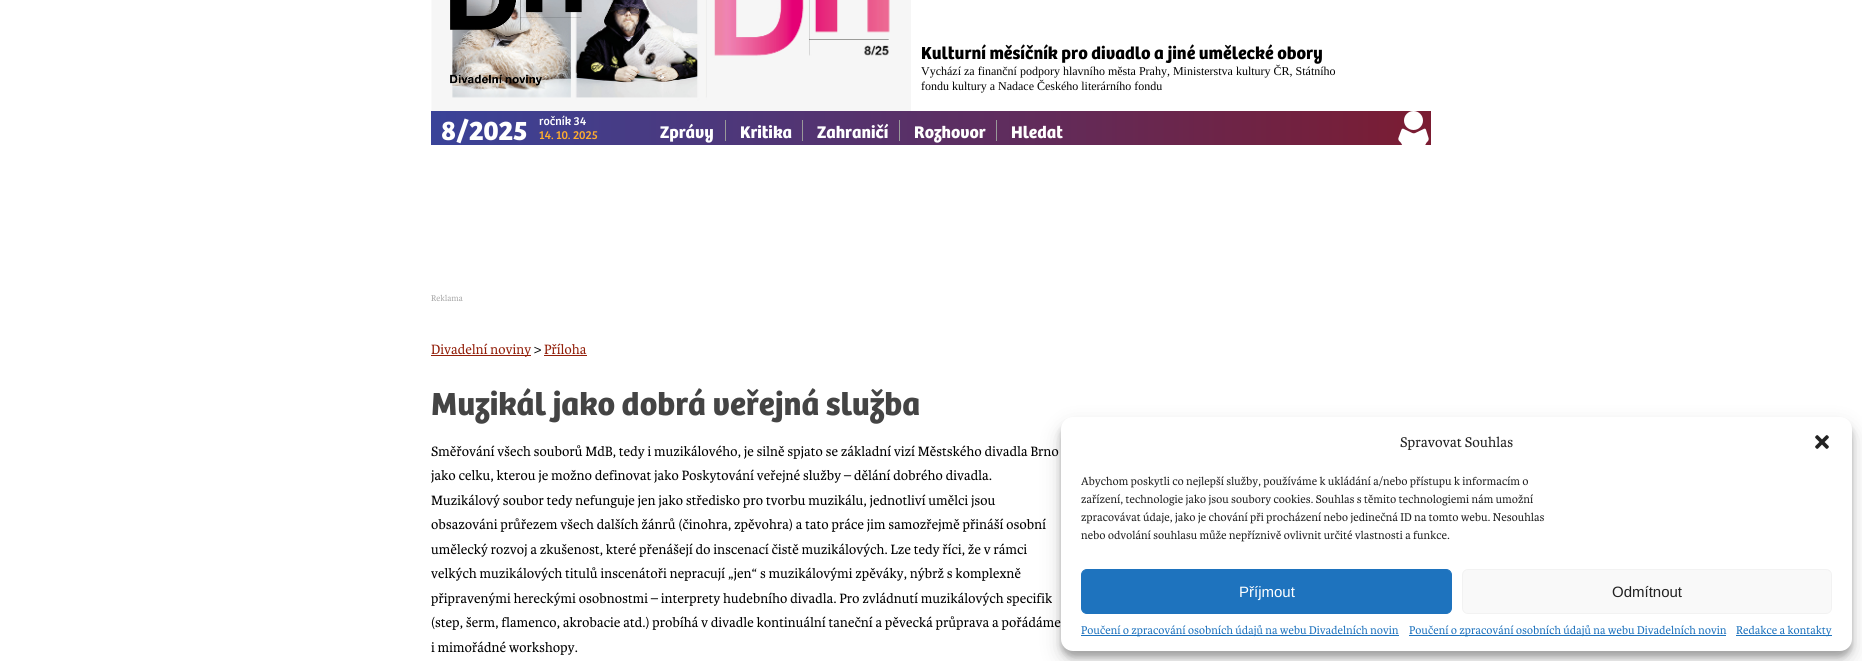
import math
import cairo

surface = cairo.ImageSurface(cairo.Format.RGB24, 1862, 661)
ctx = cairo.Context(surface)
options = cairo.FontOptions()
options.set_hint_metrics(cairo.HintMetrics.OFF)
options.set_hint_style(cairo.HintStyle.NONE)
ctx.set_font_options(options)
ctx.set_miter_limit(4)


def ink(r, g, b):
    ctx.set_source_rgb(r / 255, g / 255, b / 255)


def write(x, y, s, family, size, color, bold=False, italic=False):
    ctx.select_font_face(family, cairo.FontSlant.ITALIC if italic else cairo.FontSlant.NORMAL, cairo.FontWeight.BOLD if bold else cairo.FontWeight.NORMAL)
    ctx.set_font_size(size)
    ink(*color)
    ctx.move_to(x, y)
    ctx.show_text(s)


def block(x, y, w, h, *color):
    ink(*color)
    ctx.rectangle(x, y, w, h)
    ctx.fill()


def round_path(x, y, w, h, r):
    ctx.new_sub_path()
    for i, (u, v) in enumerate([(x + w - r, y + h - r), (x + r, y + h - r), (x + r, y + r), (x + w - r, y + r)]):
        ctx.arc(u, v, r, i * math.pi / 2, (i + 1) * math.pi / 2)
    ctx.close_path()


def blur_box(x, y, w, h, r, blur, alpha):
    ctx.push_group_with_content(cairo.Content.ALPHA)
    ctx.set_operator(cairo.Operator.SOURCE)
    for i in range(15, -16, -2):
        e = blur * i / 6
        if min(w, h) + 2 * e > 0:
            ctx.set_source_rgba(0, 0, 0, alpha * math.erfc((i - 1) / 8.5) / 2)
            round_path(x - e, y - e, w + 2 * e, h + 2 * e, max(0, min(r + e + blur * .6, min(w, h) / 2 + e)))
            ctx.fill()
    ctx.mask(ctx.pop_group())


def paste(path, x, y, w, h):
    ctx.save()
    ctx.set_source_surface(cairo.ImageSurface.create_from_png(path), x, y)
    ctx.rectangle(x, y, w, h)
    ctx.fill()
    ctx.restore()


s1 = dict(family="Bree", size=18, color=(0, 0, 0), bold=True)
s2 = dict(family="Liberation Serif", size=12, color=(0, 0, 0))
s3 = dict(family="Bree", size=28, color=(255, 255, 255), bold=True)
s4 = dict(family="Bree", size=12, color=(255, 255, 255))
s5 = dict(family="Bree", size=12, color=(255, 173, 45))
s6 = dict(family="Bree", size=17.5, color=(255, 255, 255), bold=True)
s7 = dict(family="Bree", size=33.1, color=(68, 68, 68), bold=True)
s8 = dict(family="Liberation Sans", size=15, color=(255, 255, 255))
s9 = dict(family="Liberation Sans", size=15, color=(34, 34, 34))

ink(255, 255, 255)
ctx.paint()
paste("pic1.png", 431, 0, 480, 111)
paste("pic2.png", 450, 0, 132, 86)
write(921, 59, "Kulturní měsíčník pro divadlo a jiné umělecké obory", **s1)
write(921, 75, "Vychází za finanční podpory hlavního města Prahy, Ministerstva kultury ČR, Státního", **s2)
write(921, 90, "fondu kultury a Nadace Českého literárního fondu", **s2)
gradient = cairo.LinearGradient(431, 128, 1431, 128)
gradient.add_color_stop_rgba(0, 0.227, 0.263, 0.6, 1)
gradient.add_color_stop_rgba(1, 0.482, 0.11, 0.196, 1)
ctx.set_source(gradient)
ctx.rectangle(431, 111, 1000, 34)
ctx.fill()
write(441, 140, "8/2025", **s3)
write(539, 125, "ročník 34", **s4)
write(539, 139, "14. 10. 2025", **s5)
write(660, 138, "Zprávy", **s6)
block(725, 120, 1, 21, 153, 153, 153)
write(740, 138, "Kritika", **s6)
block(802, 120, 1, 21, 153, 153, 153)
write(817, 138, "Zahraničí", **s6)
block(899, 120, 1, 21, 153, 153, 153)
write(914, 138, "Rozhovor", **s6)
block(996, 120, 1, 21, 153, 153, 153)
write(1011, 138, "Hledat", **s6)
paste("pic3.png", 1398, 111, 31, 34)
paste("pic4.png", 431, 294, 32, 8)
block(431, 355, 100, 1, 146, 31, 10)
paste("pic5.png", 431, 343, 101, 14)
paste("pic6.png", 534, 346, 7, 8)
paste("pic7.png", 544, 343, 43, 12)
block(544, 355, 43, 1, 146, 31, 10)
write(431, 415, "Muzikál jako dobrá veřejná služba", **s7)
paste("pic8.png", 431, 445, 628, 14)
paste("pic9.png", 431, 469, 561, 14)
paste("pic10.png", 431, 494, 565, 14)
paste("pic11.png", 431, 518, 615, 14)
paste("pic12.png", 431, 543, 596, 14)
paste("pic13.png", 431, 567, 590, 14)
paste("pic14.png", 431, 592, 621, 14)
paste("pic15.png", 431, 616, 630, 14)
paste("pic16.png", 431, 641, 147, 14)
ink(0, 0, 0)
blur_box(1061, 423, 791, 234, 12, 3, 0.23)
blur_box(1061, 427, 791, 234, 12, 10, 0.19)
ink(255, 255, 255)
round_path(1061, 417, 791, 234, 12)
ctx.fill()
paste("pic17.png", 1400, 436, 113, 14)
paste("pic18.png", 1815, 435, 14, 14)
paste("pic19.png", 1081, 476, 447, 12)
paste("pic20.png", 1081, 494, 452, 12)
paste("pic21.png", 1081, 512, 463, 12)
paste("pic22.png", 1081, 530, 369, 12)
ink(30, 115, 190)
round_path(1081.5, 569.5, 370, 44, 5.5)
ctx.fill_preserve()
ctx.set_line_width(1)
ctx.stroke()
write(1239, 597, "Příjmout", **s8)
ink(249, 249, 249)
round_path(1462.5, 569.5, 369, 44, 5.5)
ctx.fill_preserve()
ink(242, 242, 242)
ctx.stroke()
write(1612, 597, "Odmítnout", **s9)
block(1081, 635, 318, 1, 30, 115, 190)
paste("pic23.png", 1081, 625, 318, 12)
block(1409, 635, 317, 1, 30, 115, 190)
paste("pic24.png", 1409, 625, 318, 12)
block(1736, 635, 96, 1, 30, 115, 190)
paste("pic25.png", 1736, 625, 96, 12)
surface.write_to_png("screenshot.png")
